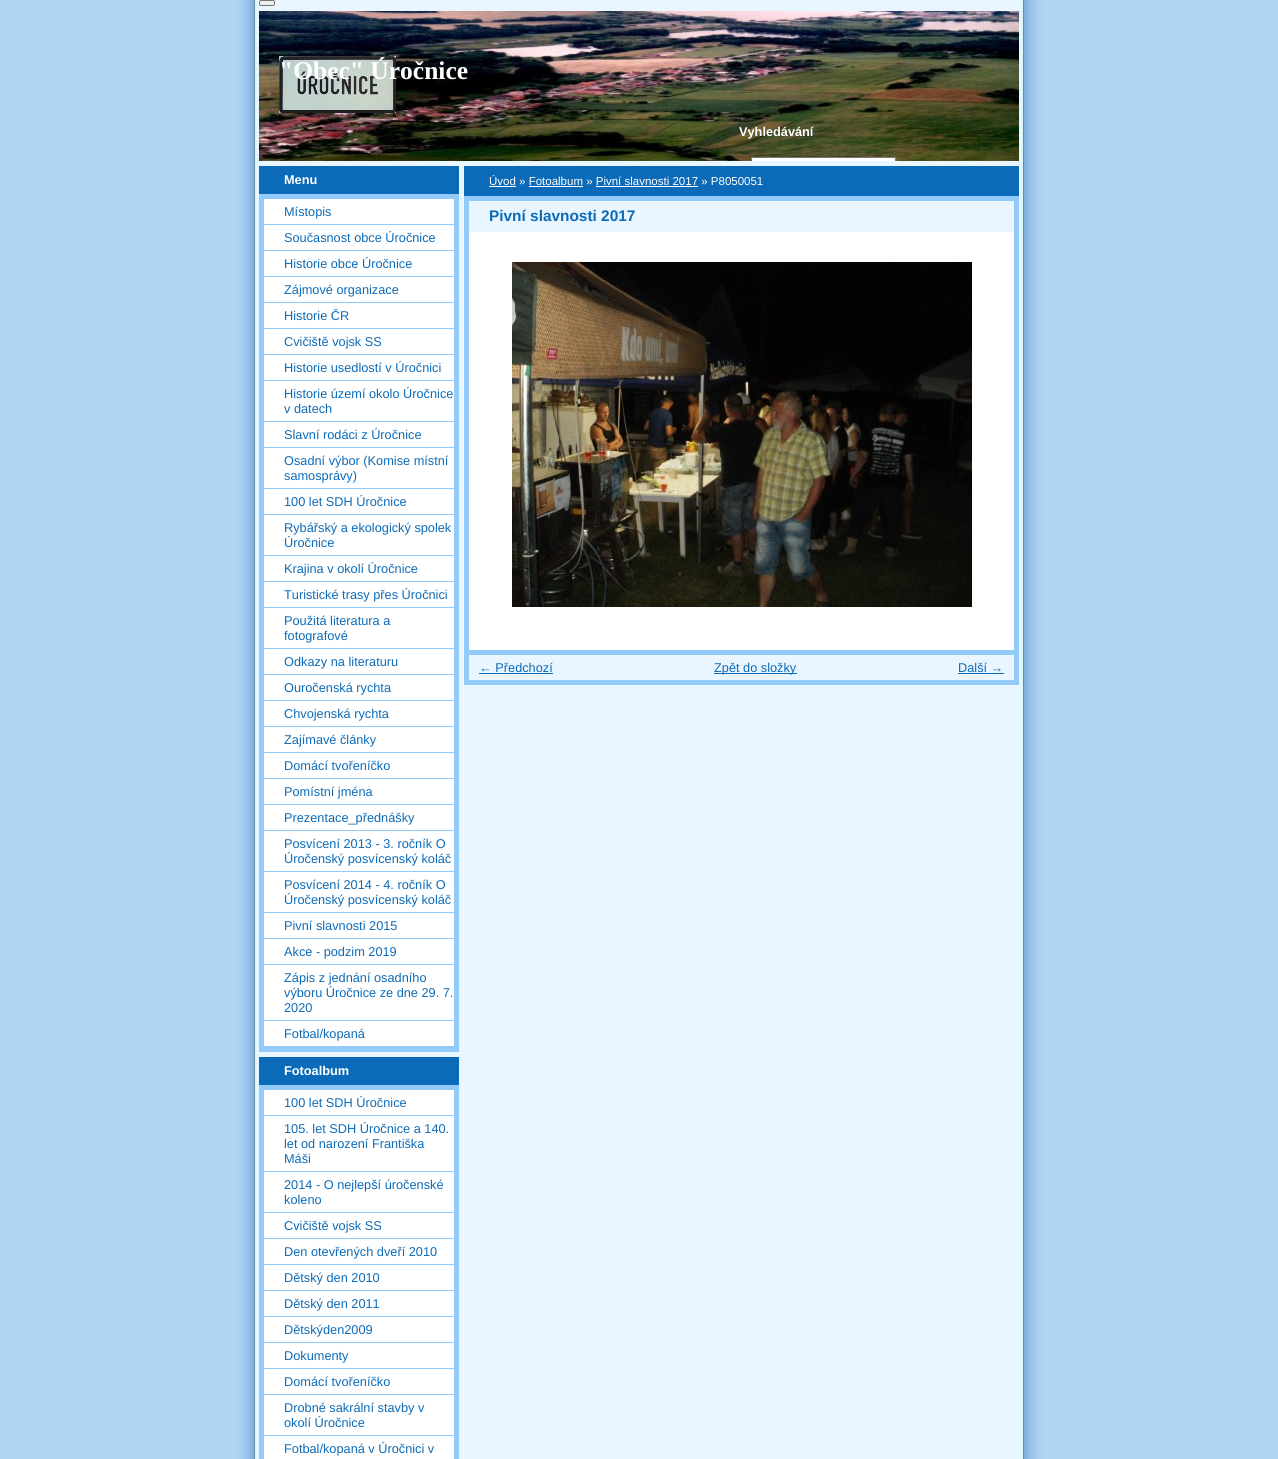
import math
import cairo

surface = cairo.ImageSurface(cairo.Format.RGB24, 1278, 1459)
ctx = cairo.Context(surface)
options = cairo.FontOptions()
options.set_hint_metrics(cairo.HintMetrics.OFF)
options.set_hint_style(cairo.HintStyle.NONE)
ctx.set_font_options(options)
ctx.set_miter_limit(4)


def ink(r, g, b):
    ctx.set_source_rgb(r / 255, g / 255, b / 255)


def write(x, y, s, family, size, color, bold=False, italic=False):
    ctx.select_font_face(family, cairo.FontSlant.ITALIC if italic else cairo.FontSlant.NORMAL, cairo.FontWeight.BOLD if bold else cairo.FontWeight.NORMAL)
    ctx.set_font_size(size)
    ink(*color)
    ctx.move_to(x, y)
    ctx.show_text(s)


def block(x, y, w, h, *color):
    ink(*color)
    ctx.rectangle(x, y, w, h)
    ctx.fill()


def round_path(x, y, w, h, r):
    ctx.new_sub_path()
    for i, (u, v) in enumerate([(x + w - r, y + h - r), (x + r, y + h - r), (x + r, y + r), (x + w - r, y + r)]):
        ctx.arc(u, v, r, i * math.pi / 2, (i + 1) * math.pi / 2)
    ctx.close_path()


def paste(path, x, y, w, h):
    ctx.save()
    ctx.set_source_surface(cairo.ImageSurface.create_from_png(path), x, y)
    ctx.rectangle(x, y, w, h)
    ctx.fill()
    ctx.restore()


s1 = dict(family="Liberation Serif", size=25.5, color=(255, 255, 255), bold=True)
s2 = dict(family="Liberation Sans", size=12.75, color=(255, 255, 255), bold=True)
s3 = dict(family="Liberation Sans", size=11.5, color=(255, 255, 255))
s4 = dict(family="Liberation Sans", size=12.75, color=(12, 107, 184))
s5 = dict(family="Liberation Sans", size=15.4, color=(12, 107, 184), bold=True)

ink(175, 213, 244)
ctx.paint()
paste("pic1.png", 234, 0, 810, 1459)
ink(239, 239, 239)
round_path(259.5, 0.5, 15, 5, 1.5)
ctx.fill_preserve()
ink(118, 118, 118)
ctx.set_line_width(1)
ctx.stroke()
paste("pic2.png", 259, 11, 760, 150)
paste("pic3.png", 279, 56, 117, 57)
write(279, 79, "\"Obec\" Úročnice", **s1)
write(739, 136, "Vyhledávání", **s2)
ctx.new_path()
ctx.move_to(753, 157)
ctx.line_to(894, 157)
ctx.curve_to(895, 157, 896, 158, 896, 159)
ctx.line_to(896, 161)
ctx.line_to(751, 161)
ctx.line_to(751, 159)
ctx.curve_to(751, 158, 752, 157, 753, 157)
ctx.close_path()
ctx.fill()
block(464, 166, 555, 30, 12, 107, 184)
write(489, 185, "Úvod » Fotoalbum » Pivní slavnosti 2017 » P8050051", **s3)
ctx.save()
ctx.rectangle(259, 11, 760, 150)
ctx.clip()
round_path(751.5, 157.5, 144, 20, 1.5)
ink(118, 118, 118)
ctx.stroke()
ctx.restore()
block(259, 166, 200, 28, 12, 107, 184)
write(284, 184, "Menu", **s2)
block(264, 199, 190, 847, 255, 255, 255)
ctx.rectangle(261.5, 196.5, 195, 853)
ink(146, 203, 249)
ctx.set_line_width(5)
ctx.stroke()
block(264, 224, 190, 1, 146, 203, 249)
write(284, 216, "Místopis", **s4)
block(264, 250, 190, 1, 146, 203, 249)
write(284, 242, "Současnost obce Úročnice", **s4)
block(264, 276, 190, 1, 146, 203, 249)
write(284, 268, "Historie obce Úročnice", **s4)
block(264, 302, 190, 1, 146, 203, 249)
write(284, 294, "Zájmové organizace", **s4)
block(264, 328, 190, 1, 146, 203, 249)
write(284, 320, "Historie ČR", **s4)
block(264, 354, 190, 1, 146, 203, 249)
write(284, 346, "Cvičiště vojsk SS", **s4)
block(264, 380, 190, 1, 146, 203, 249)
write(284, 372, "Historie usedlostí v Úročnici", **s4)
block(264, 421, 190, 1, 146, 203, 249)
write(284, 398, "Historie území okolo Úročnice", **s4)
write(284, 413, "v datech", **s4)
block(264, 447, 190, 1, 146, 203, 249)
write(284, 439, "Slavní rodáci z Úročnice", **s4)
block(264, 488, 190, 1, 146, 203, 249)
write(284, 465, "Osadní výbor (Komise místní", **s4)
write(284, 480, "samosprávy)", **s4)
block(264, 514, 190, 1, 146, 203, 249)
write(284, 506, "100 let SDH Úročnice", **s4)
block(264, 555, 190, 1, 146, 203, 249)
write(284, 532, "Rybářský a ekologický spolek", **s4)
write(284, 547, "Úročnice", **s4)
block(264, 581, 190, 1, 146, 203, 249)
write(284, 573, "Krajina v okolí Úročnice", **s4)
block(264, 607, 190, 1, 146, 203, 249)
write(284, 599, "Turistické trasy přes Úročnici", **s4)
block(264, 648, 190, 1, 146, 203, 249)
write(284, 625, "Použitá literatura a", **s4)
write(284, 640, "fotografové", **s4)
block(264, 674, 190, 1, 146, 203, 249)
write(284, 666, "Odkazy na literaturu", **s4)
block(264, 700, 190, 1, 146, 203, 249)
write(284, 692, "Ouročenská rychta", **s4)
block(264, 726, 190, 1, 146, 203, 249)
write(284, 718, "Chvojenská rychta", **s4)
block(264, 752, 190, 1, 146, 203, 249)
write(284, 744, "Zajímavé články", **s4)
block(264, 778, 190, 1, 146, 203, 249)
write(284, 770, "Domácí tvořeníčko", **s4)
block(264, 804, 190, 1, 146, 203, 249)
write(284, 796, "Pomístní jména", **s4)
block(264, 830, 190, 1, 146, 203, 249)
write(284, 822, "Prezentace_přednášky", **s4)
block(264, 871, 190, 1, 146, 203, 249)
write(284, 848, "Posvícení 2013 - 3. ročník O", **s4)
write(284, 863, "Úročenský posvícenský koláč", **s4)
block(264, 912, 190, 1, 146, 203, 249)
write(284, 889, "Posvícení 2014 - 4. ročník O", **s4)
write(284, 904, "Úročenský posvícenský koláč", **s4)
block(264, 938, 190, 1, 146, 203, 249)
write(284, 930, "Pivní slavnosti 2015", **s4)
block(264, 964, 190, 1, 146, 203, 249)
write(284, 956, "Akce - podzim 2019", **s4)
block(264, 1020, 190, 1, 146, 203, 249)
write(284, 982, "Zápis z jednání osadního", **s4)
write(284, 997, "výboru Úročnice ze dne 29. 7.", **s4)
write(284, 1012, "2020", **s4)
block(264, 1046, 190, 1, 146, 203, 249)
write(284, 1038, "Fotbal/kopaná", **s4)
block(259, 1057, 200, 28, 12, 107, 184)
write(284, 1075, "Fotoalbum", **s2)
ctx.rectangle(261.5, 1087.5, 195, 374)
ctx.fill_preserve()
ink(146, 203, 249)
ctx.stroke()
block(264, 1115, 190, 1, 146, 203, 249)
write(284, 1107, "100 let SDH Úročnice", **s4)
block(264, 1171, 190, 1, 146, 203, 249)
write(284, 1133, "105. let SDH Úročnice a 140.", **s4)
write(284, 1148, "let od narození Františka", **s4)
write(284, 1163, "Máši", **s4)
block(264, 1212, 190, 1, 146, 203, 249)
write(284, 1189, "2014 - O nejlepší úročenské", **s4)
write(284, 1204, "koleno", **s4)
block(264, 1238, 190, 1, 146, 203, 249)
write(284, 1230, "Cvičiště vojsk SS", **s4)
block(264, 1264, 190, 1, 146, 203, 249)
write(284, 1256, "Den otevřených dveří 2010", **s4)
block(264, 1290, 190, 1, 146, 203, 249)
write(284, 1282, "Dětský den 2010", **s4)
block(264, 1316, 190, 1, 146, 203, 249)
write(284, 1308, "Dětský den 2011", **s4)
block(264, 1342, 190, 1, 146, 203, 249)
write(284, 1334, "Dětskýden2009", **s4)
block(264, 1368, 190, 1, 146, 203, 249)
write(284, 1360, "Dokumenty", **s4)
block(264, 1394, 190, 1, 146, 203, 249)
write(284, 1386, "Domácí tvořeníčko", **s4)
block(264, 1435, 190, 1, 146, 203, 249)
write(284, 1412, "Drobné sakrální stavby v", **s4)
write(284, 1427, "okolí Úročnice", **s4)
write(284, 1453, "Fotbal/kopaná v Úročnici v", **s4)
block(489, 186, 27, 1, 255, 255, 255)
block(529, 186, 54, 1, 255, 255, 255)
block(596, 186, 102, 1, 255, 255, 255)
block(469, 232, 545, 418, 255, 255, 255)
ctx.rectangle(466.5, 198.5, 550, 484)
ink(146, 203, 249)
ctx.stroke()
write(489, 221, "Pivní slavnosti 2017", **s5)
paste("pic4.png", 512, 262, 460, 345)
block(469, 650, 545, 5, 146, 203, 249)
write(479, 672, "← Předchozí", **s4)
block(479, 673, 74, 1, 12, 107, 184)
block(714, 673, 83, 1, 12, 107, 184)
write(714, 672, "Zpět do složky", **s4)
write(958, 672, "Další →", **s4)
block(958, 673, 46, 1, 12, 107, 184)
surface.write_to_png("screenshot.png")
